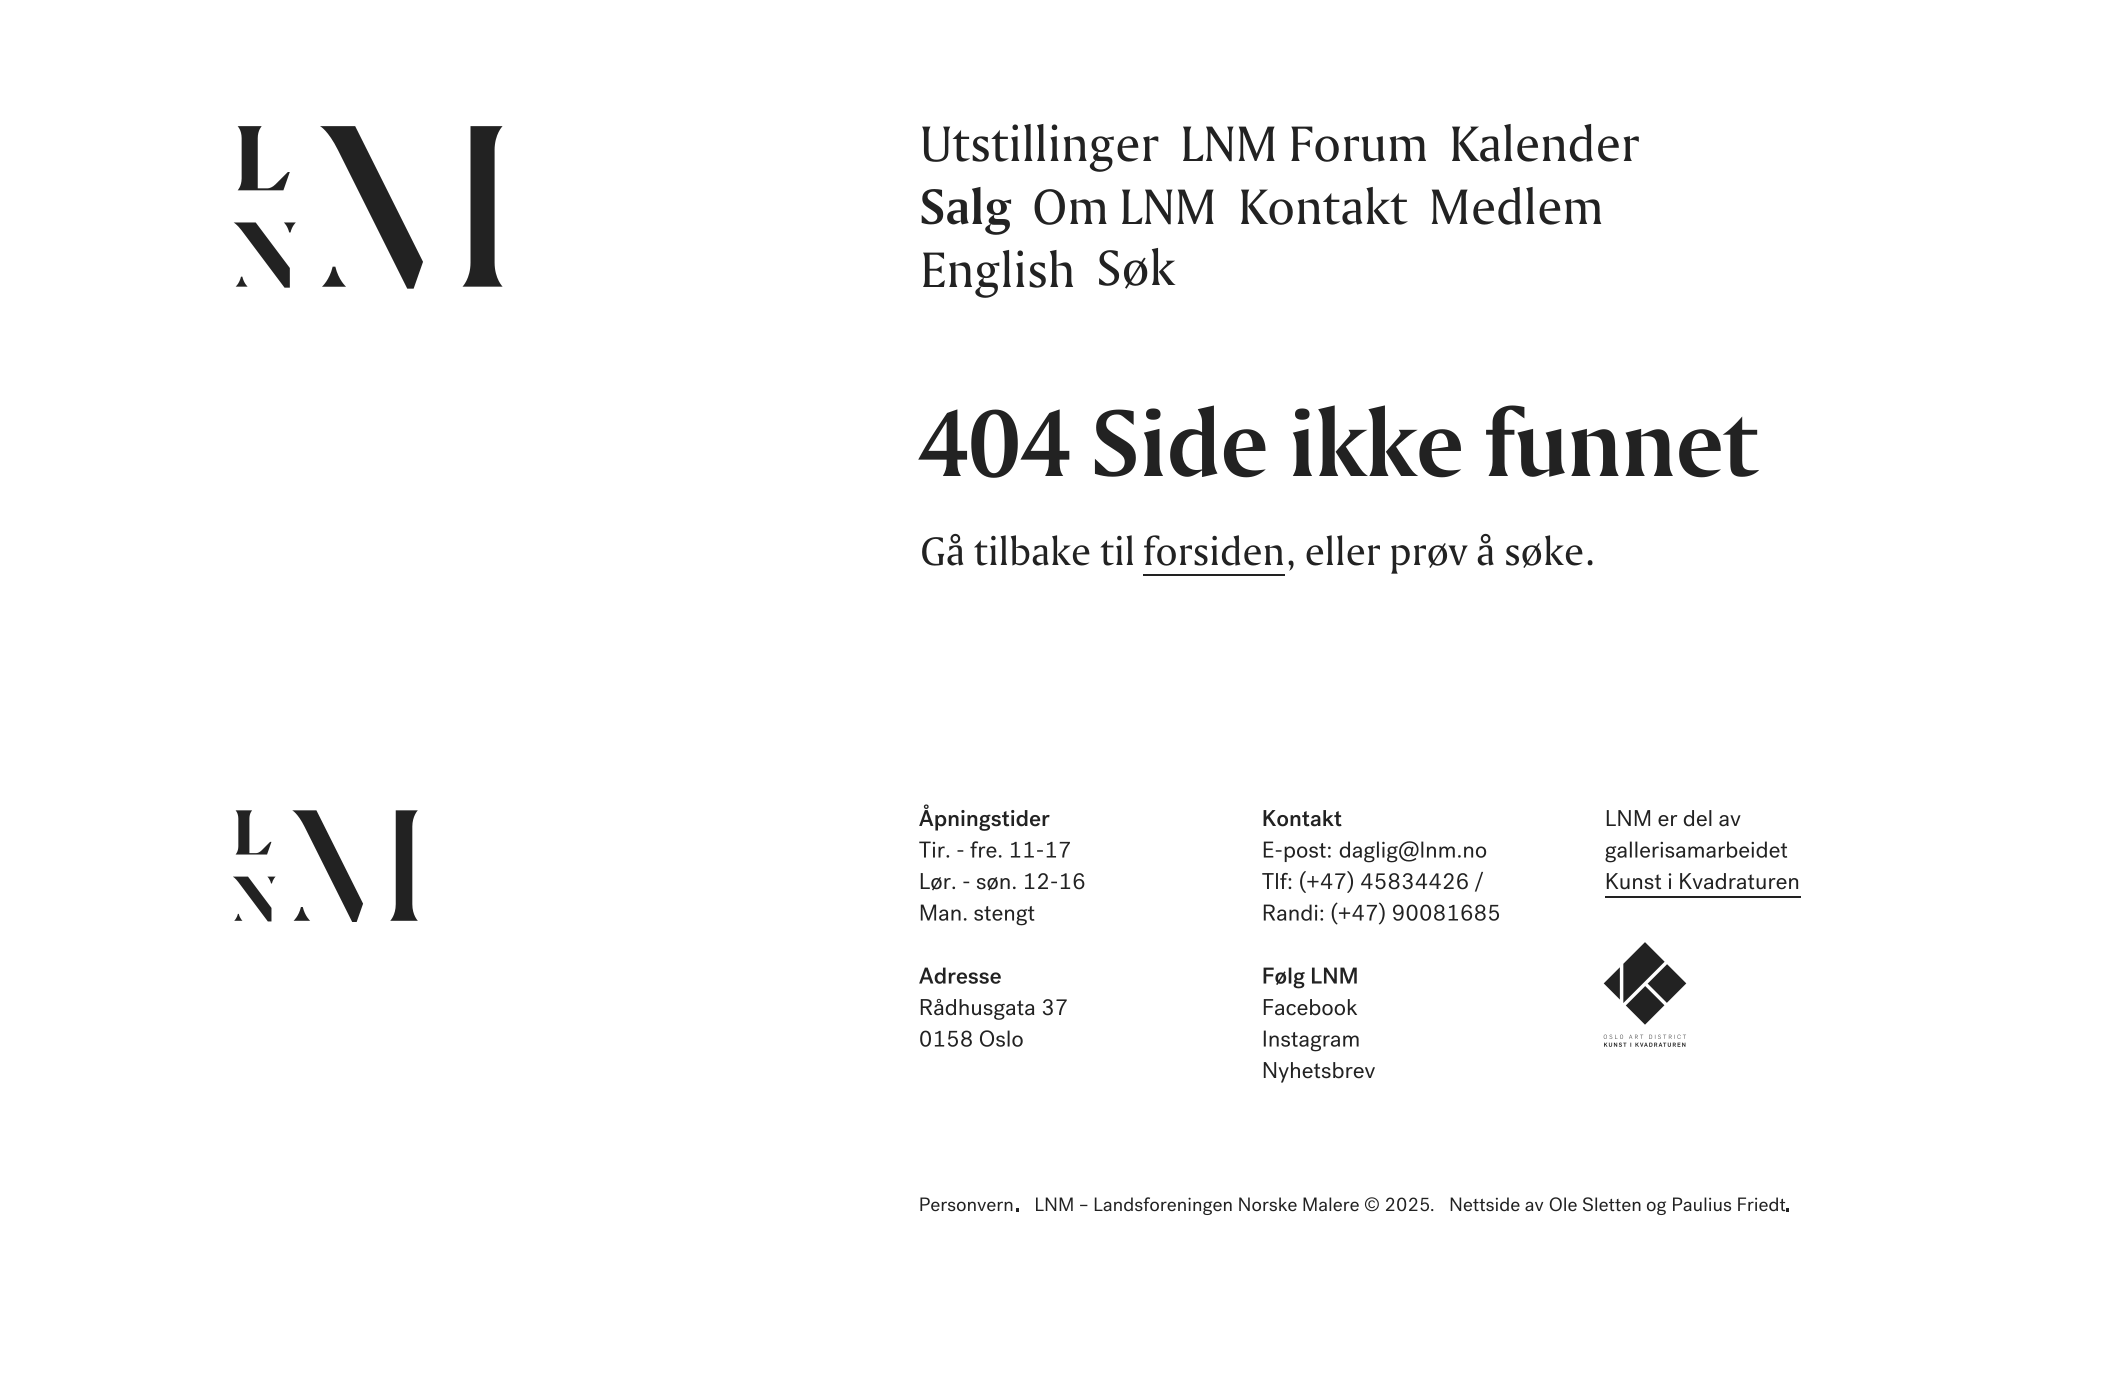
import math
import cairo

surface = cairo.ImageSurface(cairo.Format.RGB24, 2118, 1380)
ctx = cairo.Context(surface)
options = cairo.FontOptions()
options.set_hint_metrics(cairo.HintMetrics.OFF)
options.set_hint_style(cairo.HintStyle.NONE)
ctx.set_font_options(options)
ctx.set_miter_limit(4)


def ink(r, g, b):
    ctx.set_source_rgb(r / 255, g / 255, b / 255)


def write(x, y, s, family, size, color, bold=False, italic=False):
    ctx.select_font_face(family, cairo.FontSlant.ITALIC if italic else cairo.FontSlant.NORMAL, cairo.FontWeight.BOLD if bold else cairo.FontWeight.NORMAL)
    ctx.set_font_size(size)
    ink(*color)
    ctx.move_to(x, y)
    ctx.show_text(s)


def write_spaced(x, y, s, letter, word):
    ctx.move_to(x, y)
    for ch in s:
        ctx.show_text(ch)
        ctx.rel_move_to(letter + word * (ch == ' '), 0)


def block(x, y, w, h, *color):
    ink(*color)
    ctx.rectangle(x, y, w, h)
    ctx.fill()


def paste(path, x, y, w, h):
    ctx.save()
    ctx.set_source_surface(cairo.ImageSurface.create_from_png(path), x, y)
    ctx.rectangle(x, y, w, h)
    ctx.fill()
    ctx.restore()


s1 = dict(family="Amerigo", size=52.5, color=(34, 34, 34))
s2 = dict(family="Amerigo", size=52.5, color=(34, 34, 34), bold=True)
s3 = dict(family="Amerigo", size=42, color=(34, 34, 34))

ink(255, 255, 255)
ctx.paint()
paste("pic1.png", 233, 126, 270, 163)
write(920, 161, "Utstillinger", **s1)
write_spaced(1180, 161, "LNM Forum", 0, -3)
write(1449, 161, "Kalender", **s1)
write(920, 224, "Salg", **s2)
ctx.select_font_face("Amerigo")
write_spaced(1032, 224, "Om LNM", 0, -3)
write(1238, 224, "Kontakt", **s1)
write(1429, 224, "Medlem", **s1)
write(920, 287, "English", **s1)
write(1096, 285, "Søk", **s1)
ctx.select_font_face("Amerigo", cairo.FontSlant.NORMAL, cairo.FontWeight.BOLD)
ctx.set_font_size(99.75)
write_spaced(918, 476, "404 Side ikke funnet", 0, -5)
ctx.select_font_face("Amerigo")
ctx.set_font_size(42)
write_spaced(920, 565, "Gå tilbake til", 0, -2)
write(1143, 565, "forsiden", **s3)
block(1143, 574, 142, 2, 34, 34, 34)
write_spaced(1285, 565, ", eller prøv å søke.", 0, -2)
paste("pic2.png", 233, 810, 185, 112)
paste("pic3.png", 919, 804, 131, 27)
paste("pic4.png", 919, 841, 151, 17)
paste("pic5.png", 920, 873, 165, 18)
paste("pic6.png", 920, 904, 115, 22)
paste("pic7.png", 919, 967, 82, 17)
paste("pic8.png", 920, 998, 147, 22)
paste("pic9.png", 920, 1030, 103, 17)
paste("pic10.png", 1263, 810, 79, 17)
paste("pic11.png", 1263, 841, 68, 22)
paste("pic12.png", 1339, 841, 148, 22)
paste("pic13.png", 1262, 872, 30, 18)
paste("pic14.png", 1300, 871, 184, 22)
paste("pic15.png", 1263, 902, 237, 23)
paste("pic16.png", 1263, 967, 94, 22)
paste("pic17.png", 1263, 999, 95, 17)
paste("pic18.png", 1263, 1030, 96, 22)
paste("pic19.png", 1263, 1062, 112, 21)
paste("pic20.png", 1606, 810, 135, 17)
paste("pic21.png", 1605, 841, 183, 22)
paste("pic22.png", 1606, 873, 193, 17)
block(1605, 896, 196, 2, 34, 34, 34)
paste("pic23.png", 1603, 942, 84, 105)
paste("pic24.png", 920, 1197, 93, 15)
block(1016, 1208, 3, 4, 34, 34, 34)
paste("pic25.png", 1036, 1197, 394, 19)
paste("pic26.png", 1431, 1209, 3, 3)
paste("pic27.png", 1450, 1197, 94, 15)
paste("pic28.png", 1549, 1197, 92, 15)
paste("pic29.png", 1646, 1201, 21, 15)
paste("pic30.png", 1673, 1197, 113, 15)
block(1786, 1208, 3, 4, 34, 34, 34)
surface.write_to_png("screenshot.png")
